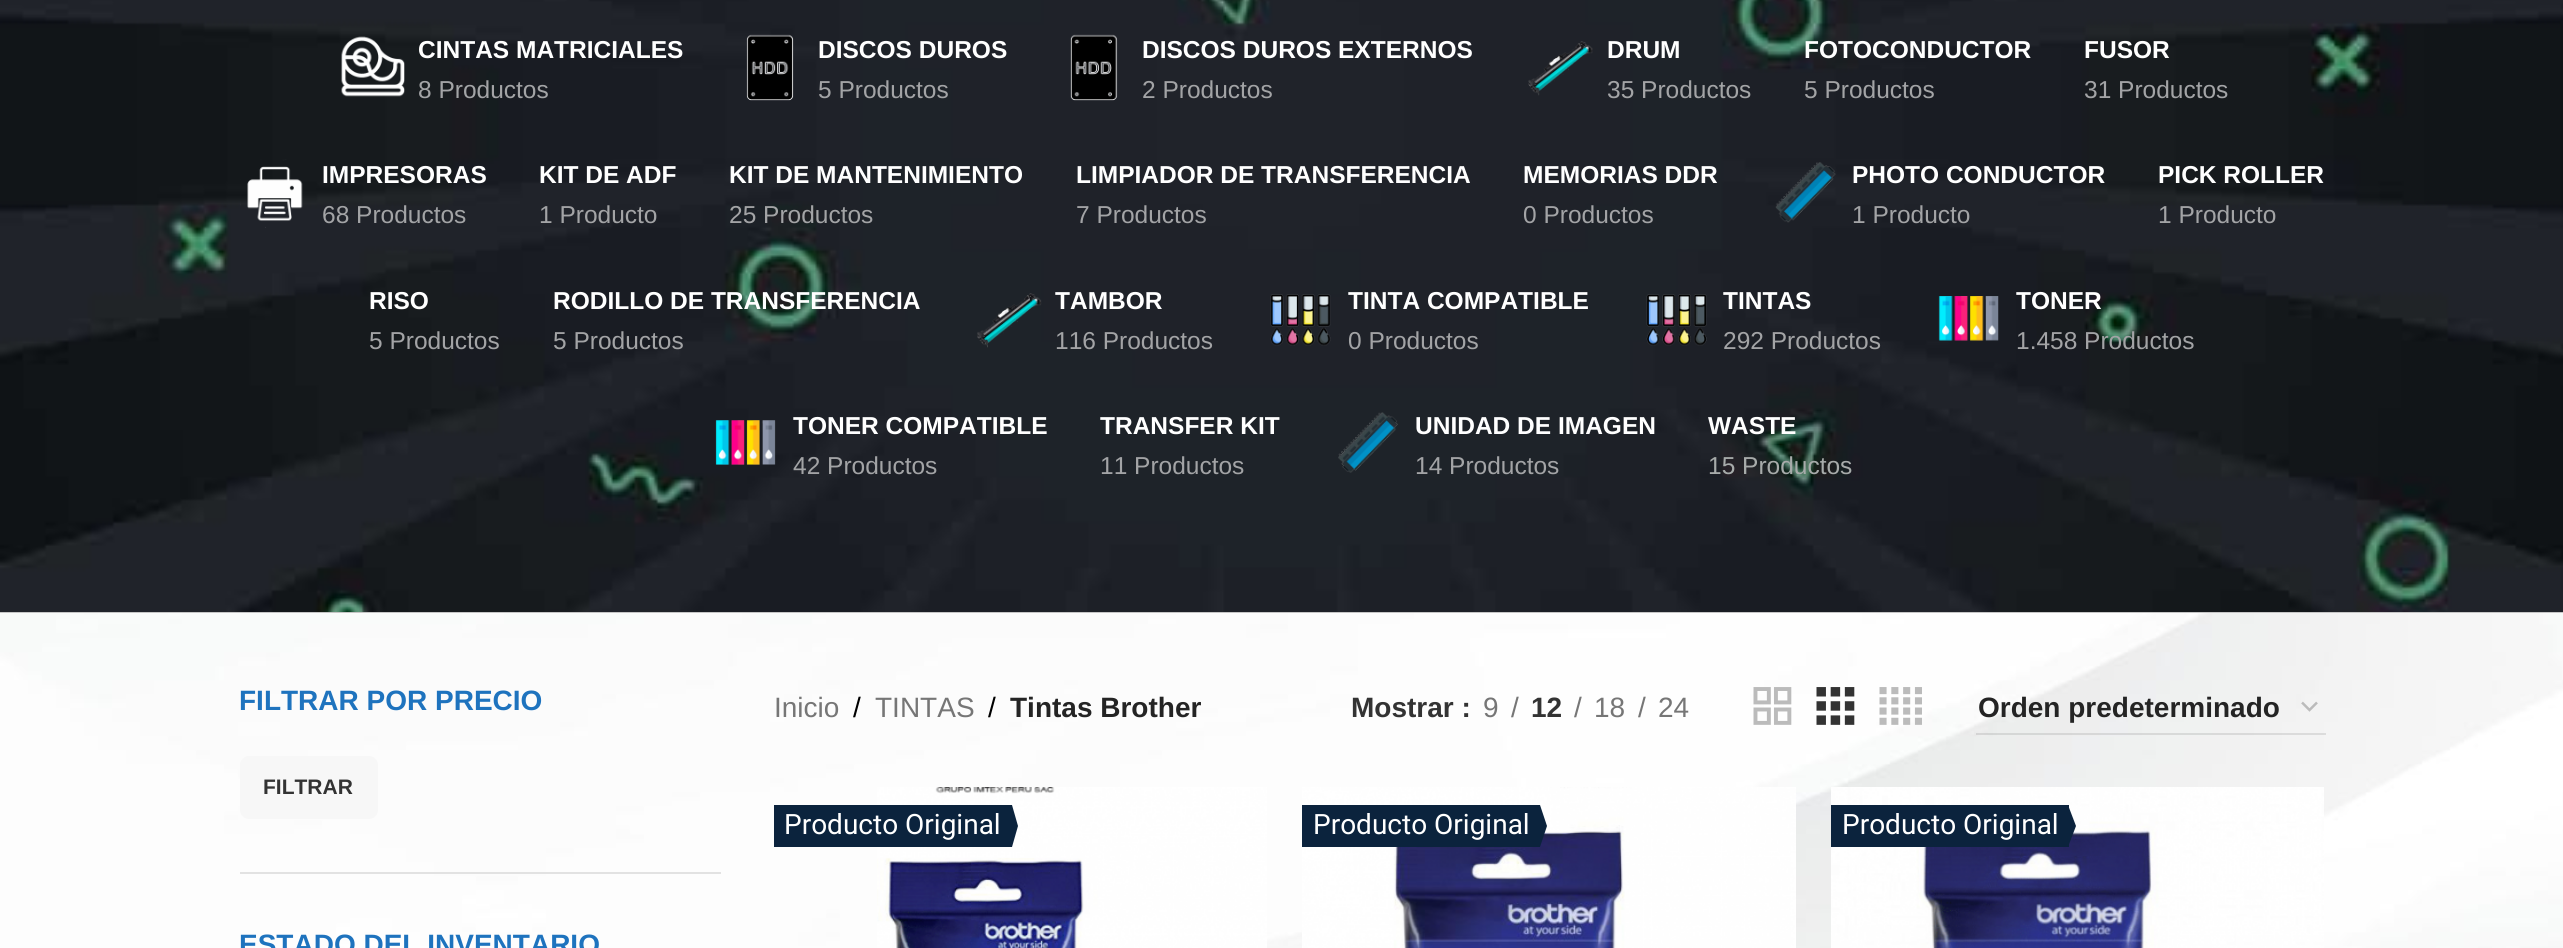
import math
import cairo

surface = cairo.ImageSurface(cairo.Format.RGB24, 2563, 948)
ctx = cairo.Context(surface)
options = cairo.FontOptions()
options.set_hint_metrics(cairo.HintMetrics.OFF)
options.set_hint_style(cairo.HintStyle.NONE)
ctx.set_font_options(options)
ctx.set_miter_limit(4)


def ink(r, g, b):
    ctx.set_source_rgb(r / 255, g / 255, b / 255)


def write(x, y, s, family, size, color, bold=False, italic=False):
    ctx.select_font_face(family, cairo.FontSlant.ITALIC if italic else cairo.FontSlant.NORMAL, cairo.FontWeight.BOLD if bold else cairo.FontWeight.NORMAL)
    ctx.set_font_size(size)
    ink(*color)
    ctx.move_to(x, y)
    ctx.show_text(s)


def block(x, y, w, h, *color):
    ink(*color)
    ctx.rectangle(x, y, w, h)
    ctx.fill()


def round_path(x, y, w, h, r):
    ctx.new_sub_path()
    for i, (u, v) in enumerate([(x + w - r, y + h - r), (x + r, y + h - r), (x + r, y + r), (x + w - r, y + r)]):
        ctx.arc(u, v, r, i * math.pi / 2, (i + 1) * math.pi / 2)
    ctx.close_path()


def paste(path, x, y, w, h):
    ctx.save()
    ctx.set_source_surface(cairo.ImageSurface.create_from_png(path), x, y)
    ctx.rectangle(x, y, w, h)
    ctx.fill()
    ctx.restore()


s1 = dict(family="Liberation Sans", size=24.5, color=(255, 255, 255), bold=True)
s2 = dict(family="Liberation Sans", size=24.5, color=(163, 164, 166))
s3 = dict(family="Liberation Sans", size=24.5, color=(167, 171, 170))
s4 = dict(family="Liberation Sans", size=28, color=(30, 115, 190), bold=True)
s5 = dict(family="Liberation Sans", size=21, color=(51, 51, 51), bold=True)
s6 = dict(family="Liberation Sans", size=28, color=(118, 118, 118))
s7 = dict(family="Liberation Sans", size=28, color=(0, 0, 0))
s8 = dict(family="Liberation Sans", size=28, color=(36, 36, 36), bold=True)
s9 = dict(family="Liberation Sans", size=28, color=(51, 51, 51), bold=True)
s10 = dict(family="Roboto", size=28, color=(255, 255, 255))

ink(255, 255, 255)
ctx.paint()
paste("pic1.png", 0, 613, 2563, 335)
block(0, 612, 2563, 1, 198, 198, 198)
paste("pic2.png", 0, 0, 2563, 612)
paste("pic3.png", 341, 36, 64, 61)
write(418, 58, "CINTAS MATRICIALES", **s1)
write(418, 98, "8 Productos", **s2)
paste("pic4.png", 746, 34, 48, 67)
write(818, 58, "DISCOS DUROS", **s1)
write(818, 98, "5 Productos", **s2)
paste("pic5.png", 1070, 34, 48, 67)
write(1142, 58, "DISCOS DUROS EXTERNOS", **s1)
write(1142, 98, "2 Productos", **s2)
paste("pic6.png", 1528, 41, 65, 55)
write(1607, 58, "DRUM", **s1)
write(1607, 98, "35 Productos", **s2)
write(1804, 58, "FOTOCONDUCTOR", **s1)
write(1804, 98, "5 Productos", **s2)
write(2084, 58, "FUSOR", **s1)
write(2084, 98, "31 Productos", **s2)
paste("pic7.png", 240, 159, 63, 69)
write(322, 183, "IMPRESORAS", **s1)
write(322, 223, "68 Productos", **s2)
write(539, 183, "KIT DE ADF", **s1)
write(539, 223, "1 Producto", **s2)
write(729, 183, "KIT DE MANTENIMIENTO", **s1)
write(729, 223, "25 Productos", **s2)
write(1076, 183, "LIMPIADOR DE TRANSFERENCIA", **s1)
write(1076, 223, "7 Productos", **s2)
write(1523, 183, "MEMORIAS DDR", **s1)
write(1523, 223, "0 Productos", **s2)
paste("pic8.png", 1775, 162, 61, 61)
write(1852, 183, "PHOTO CONDUCTOR", **s1)
write(1852, 223, "1 Producto", **s2)
write(2158, 183, "PICK ROLLER", **s1)
write(2158, 223, "1 Producto", **s2)
write(369, 309, "RISO", **s1)
write(369, 349, "5 Productos", **s2)
write(553, 309, "RODILLO DE TRANSFERENCIA", **s1)
write(553, 349, "5 Productos", **s2)
paste("pic9.png", 977, 293, 65, 55)
write(1055, 309, "TAMBOR", **s1)
write(1055, 349, "116 Productos", **s2)
paste("pic10.png", 1270, 294, 61, 52)
write(1348, 309, "TINTA COMPATIBLE", **s1)
write(1348, 349, "0 Productos", **s2)
paste("pic11.png", 1646, 294, 61, 52)
write(1723, 309, "TINTAS", **s1)
write(1723, 349, "292 Productos", **s2)
paste("pic12.png", 1938, 296, 61, 45)
write(2016, 309, "TONER", **s1)
write(2016, 349, "1.458 Productos", **s2)
paste("pic13.png", 715, 420, 61, 45)
write(793, 434, "TONER COMPATIBLE", **s1)
write(793, 474, "42 Productos", **s2)
write(1100, 434, "TRANSFER KIT", **s1)
write(1100, 474, "11 Productos", **s2)
paste("pic14.png", 1338, 412, 60, 61)
write(1415, 434, "UNIDAD DE IMAGEN", **s1)
write(1415, 474, "14 Productos", **s2)
write(1708, 434, "WASTE", **s1)
write(1708, 474, "15 Productos", **s3)
block(240, 872, 481, 2, 226, 226, 226)
write(239, 710, "FILTRAR POR PRECIO", **s4)
ink(247, 247, 247)
round_path(240, 756, 138, 63, 9)
ctx.fill()
write(263, 794, "FILTRAR", **s5)
write(239, 954, "ESTADO DEL INVENTARIO", **s4)
write(774, 717, "Inicio", **s6)
write(853, 717, "/", **s7)
write(875, 717, "TINTAS", **s6)
write(988, 717, "/", **s7)
write(1010, 717, "Tintas Brother", **s8)
write(1351, 717, "Mostrar :", **s9)
write(1483, 717, "9", **s6)
write(1511, 717, "/", **s6)
write(1531, 717, "12", **s9)
write(1574, 717, "/", **s6)
write(1594, 717, "18", **s6)
write(1638, 717, "/", **s6)
write(1658, 717, "24", **s6)
paste("pic15.png", 1753, 687, 39, 38)
paste("pic16.png", 1816, 687, 39, 38)
paste("pic17.png", 1879, 687, 43, 38)
ctx.new_path()
ctx.move_to(2302, 702.5)
ctx.line_to(2309.5, 710)
ctx.line_to(2317, 702.5)
ink(187, 187, 187)
ctx.set_line_width(2.5)
ctx.stroke()
ctx.set_source_rgba(0, 0, 0, 0.1)
ctx.rectangle(1976, 733, 350, 2)
ctx.fill()
write(1978, 717, "Orden predeterminado", **s8)
paste("pic18.png", 877, 787, 390, 161)
block(774, 805, 238, 42, 11, 35, 61)
write(784, 834, "Producto Original", **s10)
ink(11, 35, 61)
ctx.new_path()
ctx.move_to(1012, 847)
ctx.line_to(1012, 805)
ctx.line_to(1018, 826)
ctx.close_path()
ctx.fill()
paste("pic19.png", 1302, 787, 494, 161)
block(1302, 805, 238, 42, 11, 35, 61)
write(1313, 834, "Producto Original", **s10)
ink(11, 35, 61)
ctx.new_path()
ctx.move_to(1540, 847)
ctx.line_to(1540, 805)
ctx.line_to(1547, 826)
ctx.close_path()
ctx.fill()
paste("pic20.png", 1831, 787, 493, 161)
block(1831, 805, 238, 42, 11, 35, 61)
write(1842, 834, "Producto Original", **s10)
ink(11, 35, 61)
ctx.new_path()
ctx.move_to(2068, 847)
ctx.line_to(2068, 805)
ctx.line_to(2076, 826)
ctx.close_path()
ctx.fill()
surface.write_to_png("screenshot.png")
